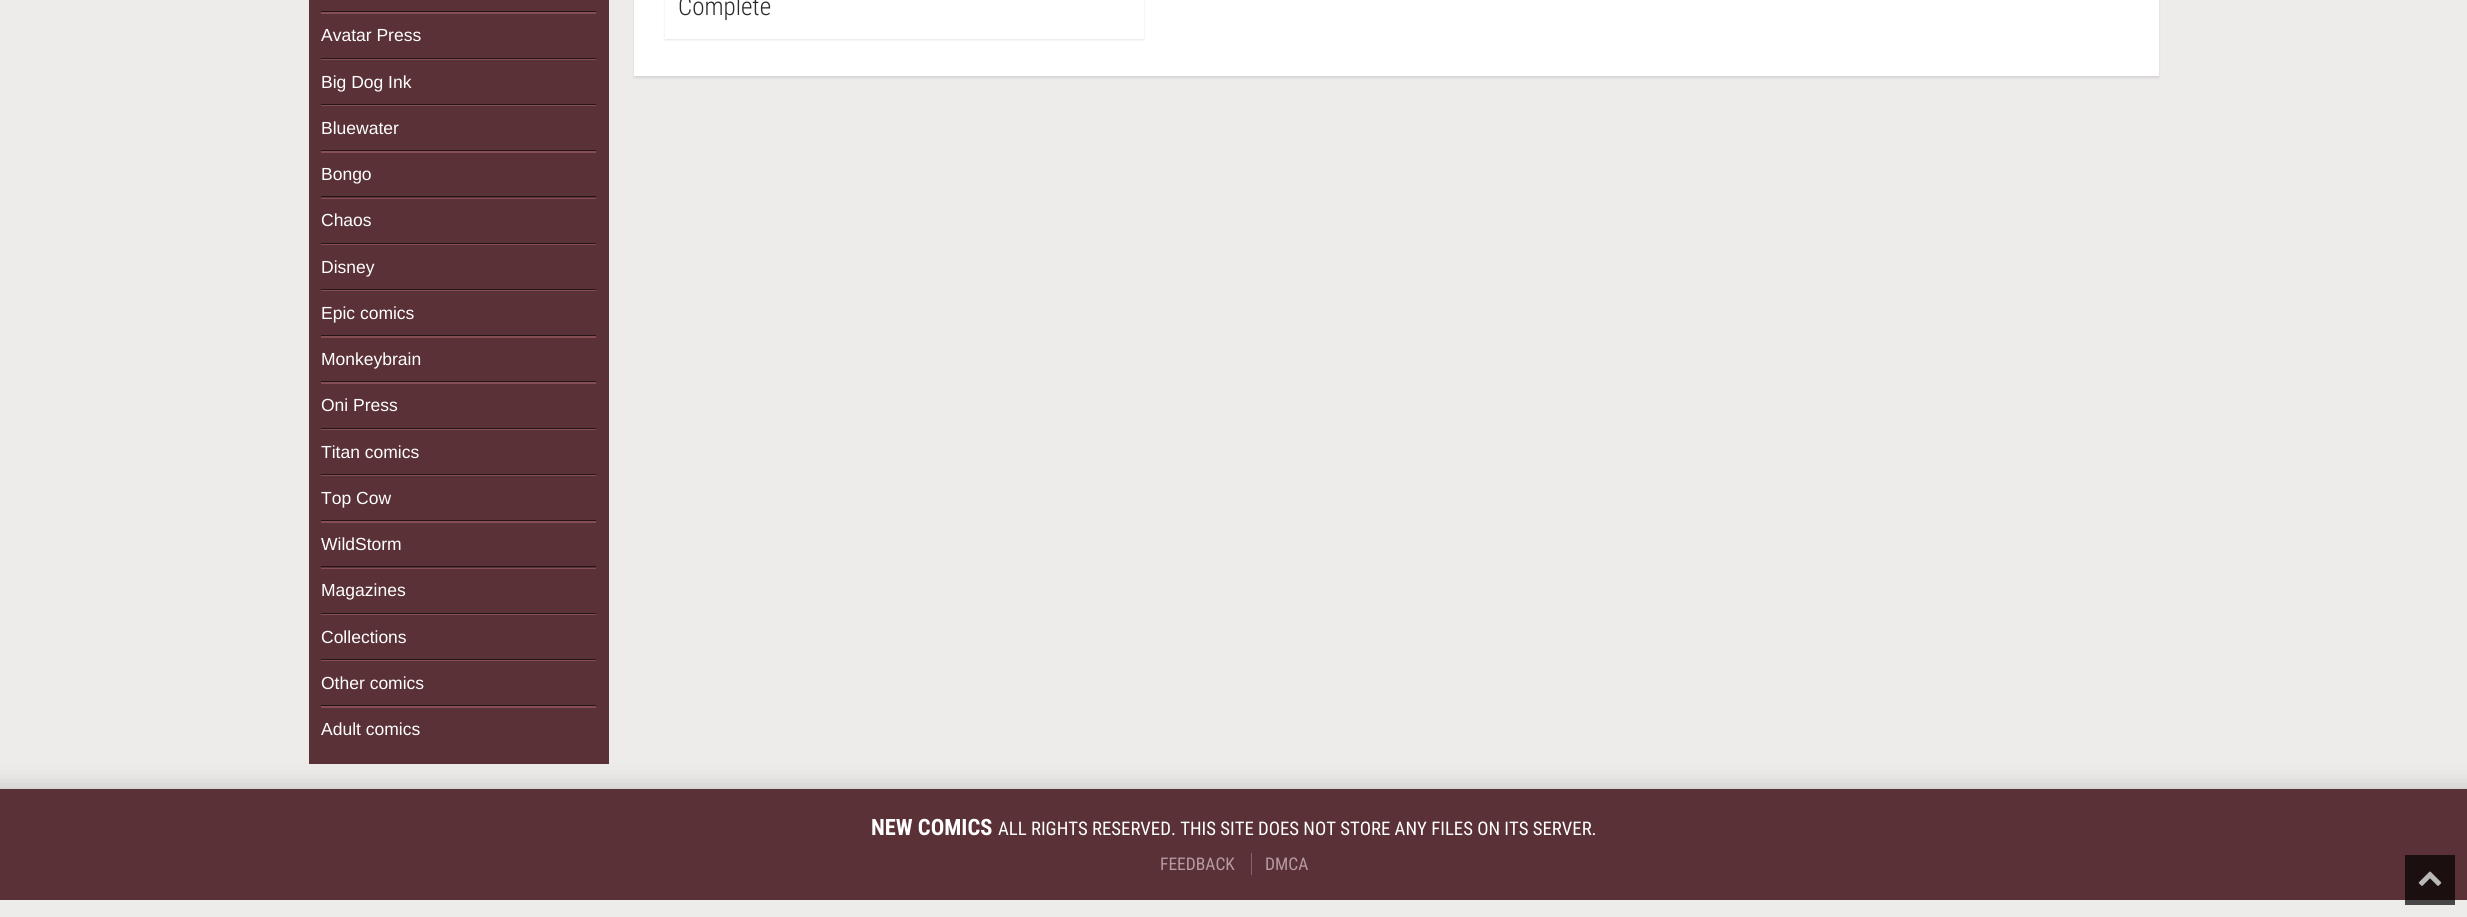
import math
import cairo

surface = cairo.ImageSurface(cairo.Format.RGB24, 2467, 917)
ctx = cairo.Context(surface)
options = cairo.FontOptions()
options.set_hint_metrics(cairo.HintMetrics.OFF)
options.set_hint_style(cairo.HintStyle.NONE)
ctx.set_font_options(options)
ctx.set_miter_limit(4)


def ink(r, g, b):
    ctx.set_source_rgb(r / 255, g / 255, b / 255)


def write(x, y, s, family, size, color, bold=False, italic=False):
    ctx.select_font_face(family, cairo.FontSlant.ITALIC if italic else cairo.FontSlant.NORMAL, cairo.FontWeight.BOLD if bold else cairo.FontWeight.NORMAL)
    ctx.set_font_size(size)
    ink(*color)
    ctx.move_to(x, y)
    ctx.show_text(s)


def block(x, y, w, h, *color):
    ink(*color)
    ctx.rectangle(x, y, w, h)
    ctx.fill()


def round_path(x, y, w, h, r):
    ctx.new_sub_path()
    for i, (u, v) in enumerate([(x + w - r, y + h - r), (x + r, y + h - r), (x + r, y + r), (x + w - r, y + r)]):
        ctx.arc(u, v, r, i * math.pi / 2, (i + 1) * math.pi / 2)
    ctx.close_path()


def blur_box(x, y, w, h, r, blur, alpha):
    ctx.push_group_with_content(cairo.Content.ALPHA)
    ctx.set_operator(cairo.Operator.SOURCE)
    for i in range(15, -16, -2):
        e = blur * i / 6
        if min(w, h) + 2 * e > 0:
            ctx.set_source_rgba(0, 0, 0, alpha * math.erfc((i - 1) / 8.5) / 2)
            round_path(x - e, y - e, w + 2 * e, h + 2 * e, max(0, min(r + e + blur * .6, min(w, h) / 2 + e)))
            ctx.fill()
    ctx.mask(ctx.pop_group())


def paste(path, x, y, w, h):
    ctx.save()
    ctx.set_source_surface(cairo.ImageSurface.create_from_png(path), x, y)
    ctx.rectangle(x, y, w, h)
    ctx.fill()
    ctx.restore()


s1 = dict(family="Roboto Condensed Light", size=25, color=(42, 42, 42))
s2 = dict(family="Liberation Sans", size=17.5, color=(255, 255, 255))
s3 = dict(family="Roboto Condensed", size=22.5, color=(255, 255, 255), bold=True)
s4 = dict(family="Roboto Condensed", size=18.75, color=(255, 255, 255))
s5 = dict(family="Roboto Condensed", size=17.5, color=(183, 154, 164))

ink(238, 235, 235)
ctx.paint()
block(2405, 900, 50, 5, 71, 71, 71)
ink(0, 0, 0)
blur_box(634, -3, 1525, 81, 0, 1, 0.1)
block(634, 0, 1525, 76, 255, 255, 255)
ink(0, 0, 0)
blur_box(665, -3, 479, 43, 0, 1, 0.1)
block(665, 0, 479, 39, 255, 255, 255)
write(678, 15, "Complete", **s1)
block(309, 0, 300, 764, 89, 49, 54)
ink(135, 77, 85)
ctx.new_path()
ctx.move_to(321, -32)
ctx.line_to(321, 14)
ctx.line_to(596, 14)
ctx.line_to(596, 12)
ctx.line_to(321, 12)
ctx.close_path()
ctx.fill()
block(321, 11, 275, 1, 37, 21, 23)
ink(135, 77, 85)
ctx.new_path()
ctx.move_to(321, 14)
ctx.line_to(321, 60)
ctx.line_to(596, 60)
ctx.line_to(596, 59)
ctx.line_to(321, 59)
ctx.close_path()
ctx.fill()
block(321, 58, 275, 1, 37, 21, 23)
write(321, 41, "Avatar Press", **s2)
ink(135, 77, 85)
ctx.new_path()
ctx.move_to(321, 60)
ctx.line_to(321, 106)
ctx.line_to(596, 106)
ctx.line_to(596, 105)
ctx.line_to(321, 105)
ctx.close_path()
ctx.fill()
block(321, 104, 275, 1, 37, 21, 23)
write(321, 88, "Big Dog Ink", **s2)
ink(135, 77, 85)
ctx.new_path()
ctx.move_to(321, 106)
ctx.line_to(321, 153)
ctx.line_to(596, 153)
ctx.line_to(596, 151)
ctx.line_to(321, 151)
ctx.close_path()
ctx.fill()
block(321, 150, 275, 1, 37, 21, 23)
write(321, 134, "Bluewater", **s2)
ink(135, 77, 85)
ctx.new_path()
ctx.move_to(321, 153)
ctx.line_to(321, 199)
ctx.line_to(596, 199)
ctx.line_to(596, 198)
ctx.line_to(321, 198)
ctx.close_path()
ctx.fill()
block(321, 196, 275, 1, 37, 21, 23)
write(321, 180, "Bongo", **s2)
ink(135, 77, 85)
ctx.new_path()
ctx.move_to(321, 199)
ctx.line_to(321, 245)
ctx.line_to(596, 245)
ctx.line_to(596, 244)
ctx.line_to(321, 244)
ctx.close_path()
ctx.fill()
block(321, 243, 275, 1, 37, 21, 23)
write(321, 226, "Chaos", **s2)
ink(135, 77, 85)
ctx.new_path()
ctx.move_to(321, 245)
ctx.line_to(321, 291)
ctx.line_to(596, 291)
ctx.line_to(596, 290)
ctx.line_to(321, 290)
ctx.close_path()
ctx.fill()
block(321, 289, 275, 1, 37, 21, 23)
write(321, 273, "Disney", **s2)
ink(135, 77, 85)
ctx.new_path()
ctx.move_to(321, 291)
ctx.line_to(321, 338)
ctx.line_to(596, 338)
ctx.line_to(596, 336)
ctx.line_to(321, 336)
ctx.close_path()
ctx.fill()
block(321, 335, 275, 1, 37, 21, 23)
write(321, 319, "Epic comics", **s2)
ink(135, 77, 85)
ctx.new_path()
ctx.move_to(321, 338)
ctx.line_to(321, 384)
ctx.line_to(596, 384)
ctx.line_to(596, 382)
ctx.line_to(321, 382)
ctx.close_path()
ctx.fill()
block(321, 381, 275, 1, 37, 21, 23)
write(321, 365, "Monkeybrain", **s2)
ink(135, 77, 85)
ctx.new_path()
ctx.move_to(321, 384)
ctx.line_to(321, 430)
ctx.line_to(596, 430)
ctx.line_to(596, 429)
ctx.line_to(321, 429)
ctx.close_path()
ctx.fill()
block(321, 428, 275, 1, 37, 21, 23)
write(321, 411, "Oni Press", **s2)
ink(135, 77, 85)
ctx.new_path()
ctx.move_to(321, 430)
ctx.line_to(321, 476)
ctx.line_to(596, 476)
ctx.line_to(596, 475)
ctx.line_to(321, 475)
ctx.close_path()
ctx.fill()
block(321, 474, 275, 1, 37, 21, 23)
write(321, 458, "Titan comics", **s2)
ink(135, 77, 85)
ctx.new_path()
ctx.move_to(321, 476)
ctx.line_to(321, 523)
ctx.line_to(596, 523)
ctx.line_to(596, 521)
ctx.line_to(321, 521)
ctx.close_path()
ctx.fill()
block(321, 520, 275, 1, 37, 21, 23)
write(321, 504, "Top Cow", **s2)
ink(135, 77, 85)
ctx.new_path()
ctx.move_to(321, 523)
ctx.line_to(321, 569)
ctx.line_to(596, 569)
ctx.line_to(596, 568)
ctx.line_to(321, 568)
ctx.close_path()
ctx.fill()
block(321, 566, 275, 1, 37, 21, 23)
write(321, 550, "WildStorm", **s2)
ink(135, 77, 85)
ctx.new_path()
ctx.move_to(321, 569)
ctx.line_to(321, 615)
ctx.line_to(596, 615)
ctx.line_to(596, 614)
ctx.line_to(321, 614)
ctx.close_path()
ctx.fill()
block(321, 613, 275, 1, 37, 21, 23)
write(321, 596, "Magazines", **s2)
ink(135, 77, 85)
ctx.new_path()
ctx.move_to(321, 615)
ctx.line_to(321, 661)
ctx.line_to(596, 661)
ctx.line_to(596, 660)
ctx.line_to(321, 660)
ctx.close_path()
ctx.fill()
block(321, 659, 275, 1, 37, 21, 23)
write(321, 643, "Collections", **s2)
ink(135, 77, 85)
ctx.new_path()
ctx.move_to(321, 661)
ctx.line_to(321, 708)
ctx.line_to(596, 708)
ctx.line_to(596, 706)
ctx.line_to(321, 706)
ctx.close_path()
ctx.fill()
block(321, 705, 275, 1, 37, 21, 23)
write(321, 689, "Other comics", **s2)
write(321, 735, "Adult comics", **s2)
ink(0, 0, 0)
blur_box(-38, 789, 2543, 61, 0, 12.5, 0.2)
block(0, 789, 2467, 111, 89, 49, 54)
block(2405, 855, 50, 45, 27, 15, 16)
write(871, 835, "NEW COMICS", **s3)
write(998, 835, "ALL RIGHTS RESERVED. THIS SITE DOES NOT STORE ANY FILES ON ITS SERVER.", **s4)
write(1160, 870, "FEEDBACK", **s5)
block(1251, 853, 1, 22, 134, 99, 111)
write(1265, 870, "DMCA", **s5)
paste("pic1.png", 2418, 871, 24, 15)
surface.write_to_png("screenshot.png")
